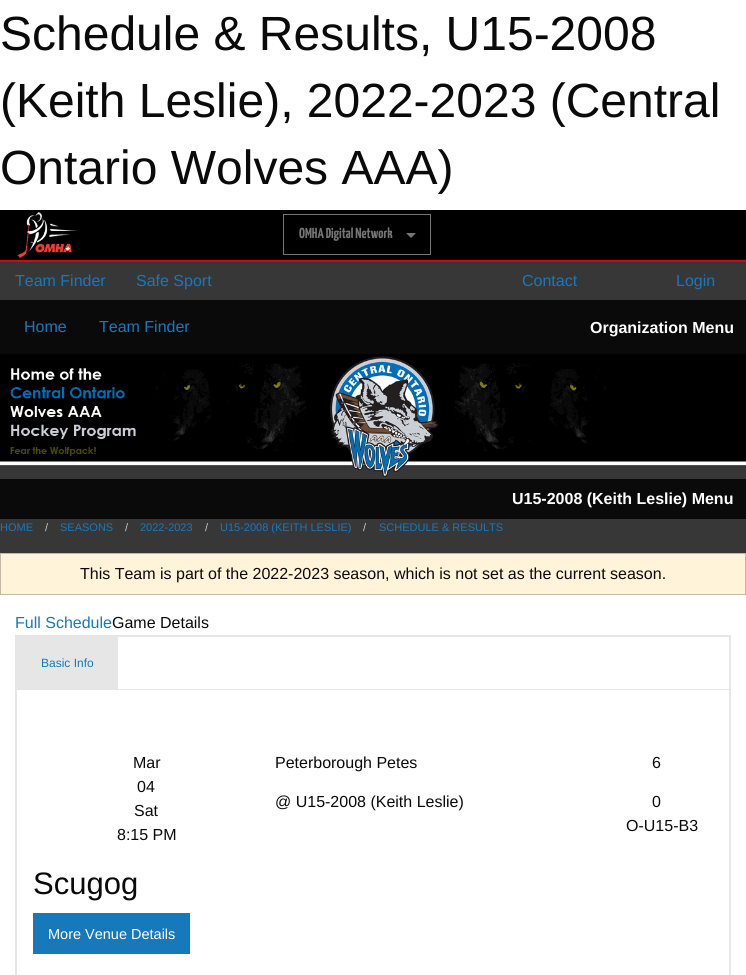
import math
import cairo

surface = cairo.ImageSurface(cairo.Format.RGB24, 746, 975)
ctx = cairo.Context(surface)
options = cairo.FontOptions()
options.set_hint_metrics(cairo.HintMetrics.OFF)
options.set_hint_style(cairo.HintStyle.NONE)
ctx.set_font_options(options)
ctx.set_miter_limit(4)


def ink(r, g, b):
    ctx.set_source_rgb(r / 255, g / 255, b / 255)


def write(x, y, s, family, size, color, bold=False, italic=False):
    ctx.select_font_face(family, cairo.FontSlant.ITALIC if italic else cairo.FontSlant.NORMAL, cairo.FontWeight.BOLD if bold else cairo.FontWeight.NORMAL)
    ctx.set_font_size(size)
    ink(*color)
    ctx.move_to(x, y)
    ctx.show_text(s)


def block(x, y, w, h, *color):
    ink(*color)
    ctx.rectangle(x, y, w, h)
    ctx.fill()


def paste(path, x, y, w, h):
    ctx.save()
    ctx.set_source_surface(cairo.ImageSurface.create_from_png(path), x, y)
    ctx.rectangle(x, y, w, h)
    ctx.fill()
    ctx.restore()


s1 = dict(family="Liberation Sans", size=48, color=(10, 10, 10))
s2 = dict(family="Yanone Kaffeesatz ExtraLight", size=14.5, color=(118, 118, 118))
s3 = dict(family="Liberation Sans", size=16, color=(23, 121, 186))
s4 = dict(family="Liberation Sans", size=16, color=(254, 254, 254), bold=True)
s5 = dict(family="Liberation Sans", size=11, color=(23, 121, 186))
s6 = dict(family="Liberation Sans", size=11, color=(202, 202, 202))
s7 = dict(family="Liberation Sans", size=16, color=(10, 10, 10))
s8 = dict(family="Liberation Sans", size=12, color=(23, 121, 186))
s9 = dict(family="Liberation Sans", size=31, color=(10, 10, 10))
s10 = dict(family="Liberation Sans", size=14.5, color=(254, 254, 254))

ink(255, 255, 255)
ctx.paint()
write(0, 50, "Schedule & Results, U15-2008", **s1)
write(0, 117, "(Keith Leslie), 2022-2023 (Central", **s1)
write(0, 184, "Ontario Wolves AAA)", **s1)
block(0, 210, 746, 50, 0, 0, 0)
block(0, 260, 746, 2, 198, 12, 12)
paste("pic1.png", 17, 212, 62, 46)
ctx.rectangle(283.5, 214.5, 147, 40)
ink(118, 118, 118)
ctx.set_line_width(1)
ctx.stroke()
write(299, 238, "OMHA Digital Network", **s2)
ctx.new_path()
ctx.move_to(406, 233)
ctx.line_to(416, 233)
ctx.line_to(411, 238)
ctx.close_path()
ctx.fill()
block(0, 262, 746, 291, 55, 55, 55)
write(15, 286, "Team Finder", **s3)
write(136, 286, "Safe Sport", **s3)
write(522, 286, "Contact", **s3)
write(676, 286, "Login", **s3)
block(0, 300, 746, 54, 10, 10, 10)
write(24, 332, "Home", **s3)
write(99, 332, "Team Finder", **s3)
write(590, 333, "Organization Menu", **s4)
paste("pic2.png", 0, 354, 746, 123)
block(0, 479, 746, 40, 10, 10, 10)
write(512, 504, "U15-2008 (Keith Leslie) Menu", **s4)
write(0, 531, "HOME", **s5)
write(45, 531, "/", **s6)
write(60, 531, "SEASONS", **s5)
write(125, 531, "/", **s6)
write(140, 531, "2022-2023", **s5)
write(205, 531, "/", **s6)
write(220, 531, "U15-2008 (KEITH LESLIE)", **s5)
write(363, 531, "/", **s6)
write(379, 531, "SCHEDULE & RESULTS", **s5)
ink(255, 243, 217)
ctx.rectangle(0.5, 553.5, 745, 41)
ctx.fill_preserve()
ink(194, 185, 165)
ctx.stroke()
write(80, 579, "This Team is part of the 2022-2023 season, which is not set as the current season.", **s7)
write(15, 628, "Full Schedule", **s3)
write(112, 628, "Game Details", **s7)
ctx.rectangle(15.5, 635.5, 715, 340)
ink(230, 230, 230)
ctx.stroke()
ctx.rectangle(16.5, 636.5, 713, 53)
ctx.stroke()
block(17, 637, 101, 52, 230, 230, 230)
write(41, 667, "Basic Info", **s8)
block(729, 690, 1, 285, 230, 230, 230)
block(16, 690, 1, 285, 230, 230, 230)
write(133, 768, "Mar", **s7)
write(137, 792, "04", **s7)
write(134, 816, "Sat", **s7)
write(117, 840, "8:15 PM", **s7)
write(275, 768, "Peterborough Petes", **s7)
write(652, 768, "6", **s7)
write(275, 807, "@ U15-2008 (Keith Leslie)", **s7)
write(652, 807, "0", **s7)
write(626, 831, "O-U15-B3", **s7)
write(33, 894, "Scugog", **s9)
block(33, 913, 157, 41, 23, 121, 186)
write(48, 939, "More Venue Details", **s10)
surface.write_to_png("screenshot.png")
